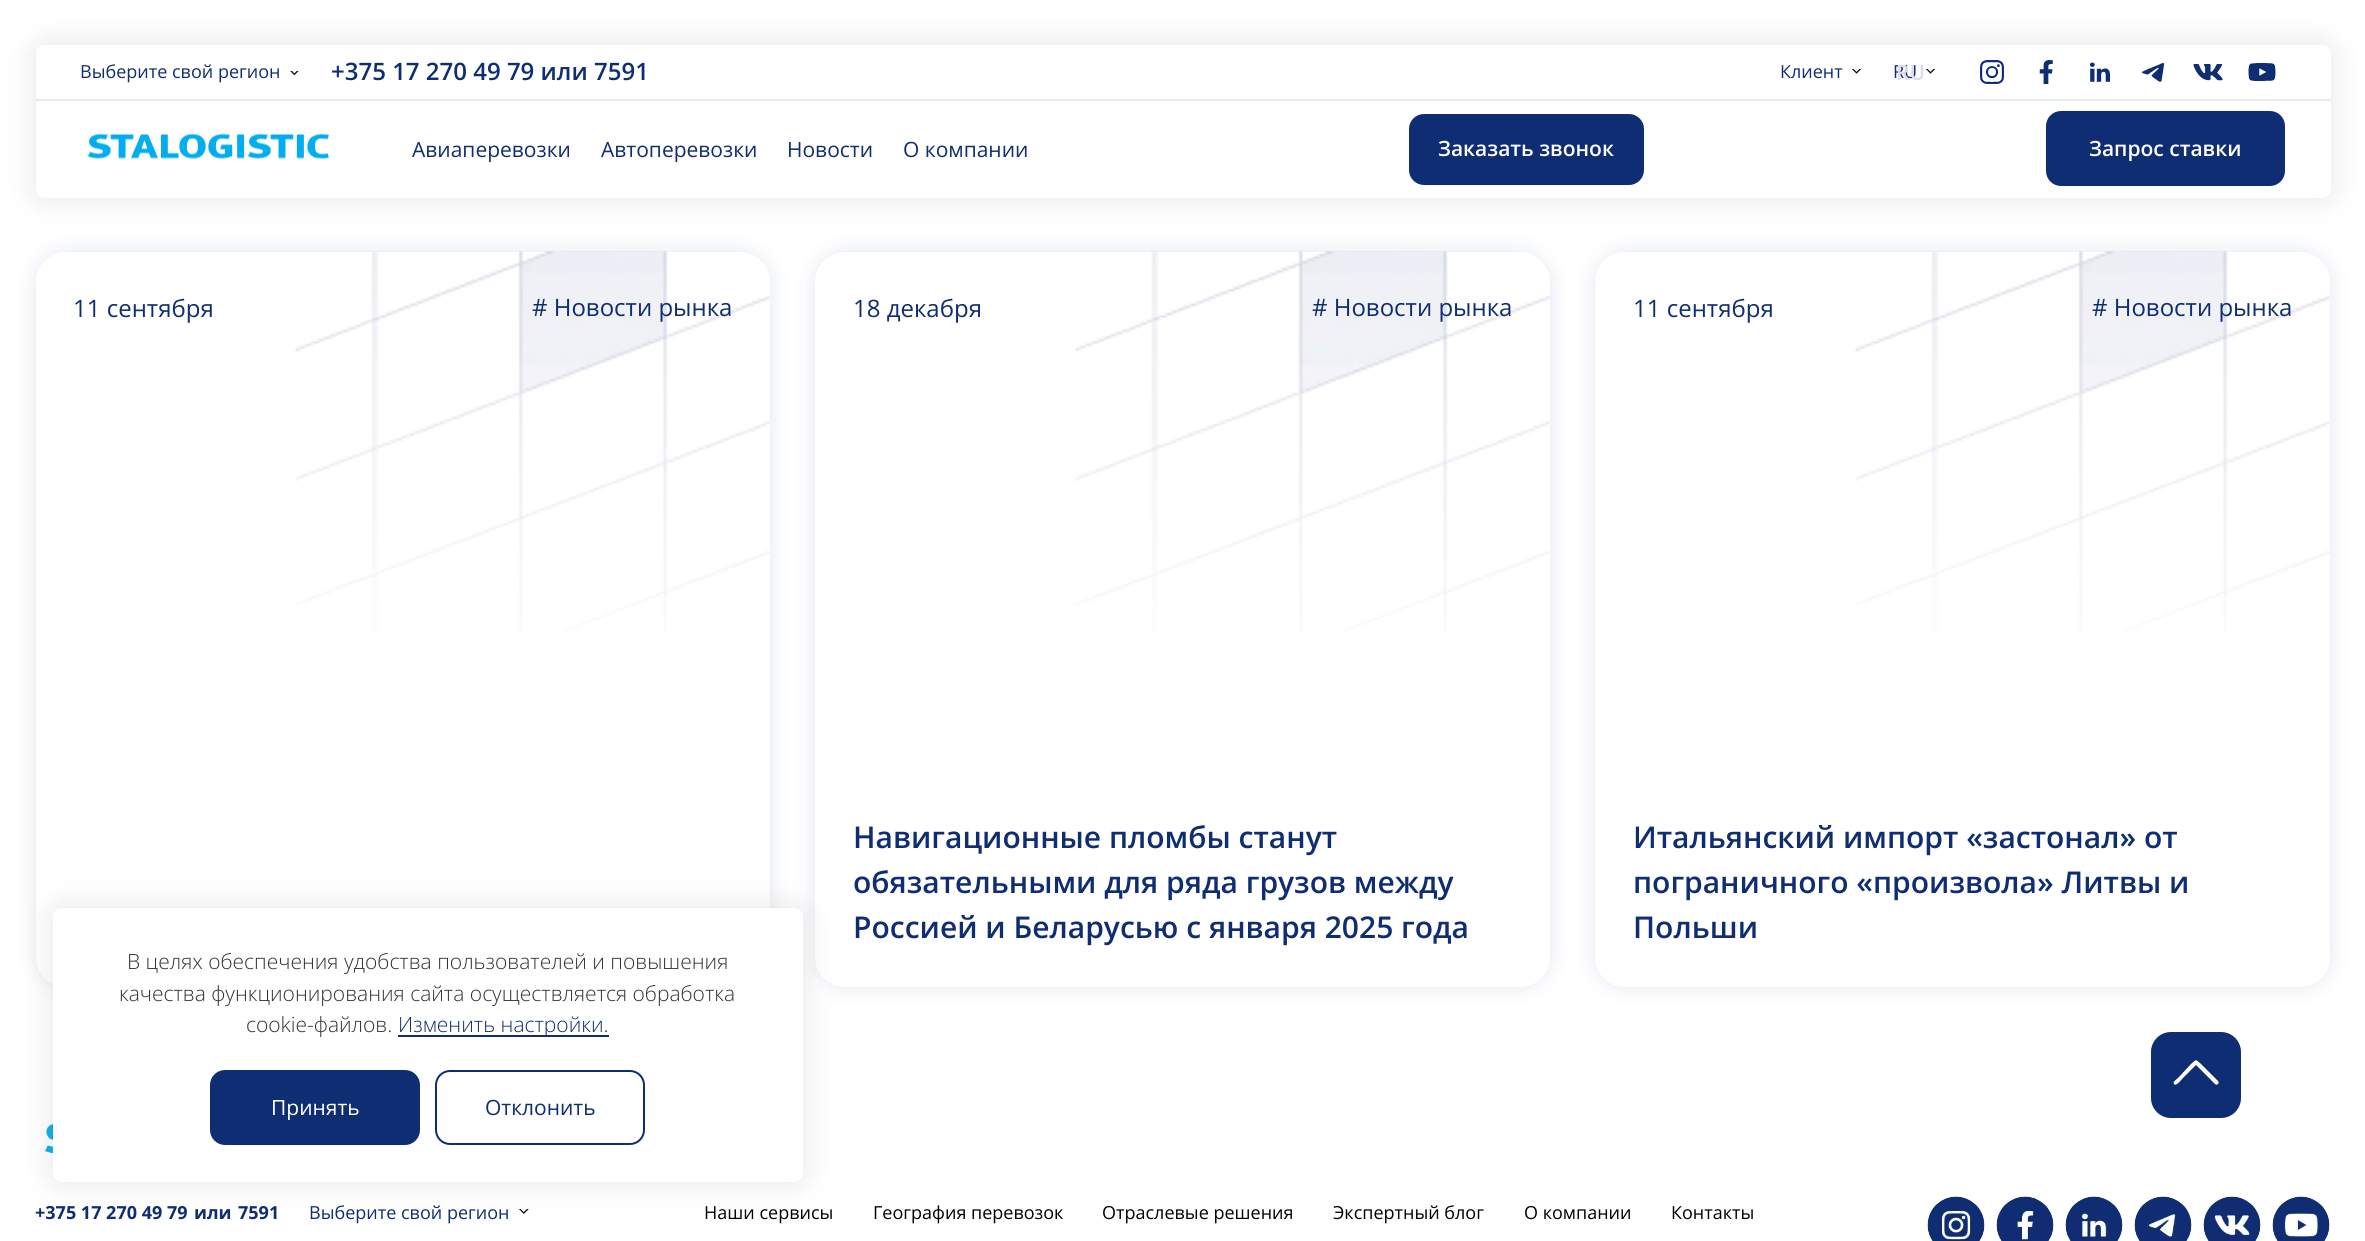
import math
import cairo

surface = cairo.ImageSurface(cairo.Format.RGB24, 2365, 1241)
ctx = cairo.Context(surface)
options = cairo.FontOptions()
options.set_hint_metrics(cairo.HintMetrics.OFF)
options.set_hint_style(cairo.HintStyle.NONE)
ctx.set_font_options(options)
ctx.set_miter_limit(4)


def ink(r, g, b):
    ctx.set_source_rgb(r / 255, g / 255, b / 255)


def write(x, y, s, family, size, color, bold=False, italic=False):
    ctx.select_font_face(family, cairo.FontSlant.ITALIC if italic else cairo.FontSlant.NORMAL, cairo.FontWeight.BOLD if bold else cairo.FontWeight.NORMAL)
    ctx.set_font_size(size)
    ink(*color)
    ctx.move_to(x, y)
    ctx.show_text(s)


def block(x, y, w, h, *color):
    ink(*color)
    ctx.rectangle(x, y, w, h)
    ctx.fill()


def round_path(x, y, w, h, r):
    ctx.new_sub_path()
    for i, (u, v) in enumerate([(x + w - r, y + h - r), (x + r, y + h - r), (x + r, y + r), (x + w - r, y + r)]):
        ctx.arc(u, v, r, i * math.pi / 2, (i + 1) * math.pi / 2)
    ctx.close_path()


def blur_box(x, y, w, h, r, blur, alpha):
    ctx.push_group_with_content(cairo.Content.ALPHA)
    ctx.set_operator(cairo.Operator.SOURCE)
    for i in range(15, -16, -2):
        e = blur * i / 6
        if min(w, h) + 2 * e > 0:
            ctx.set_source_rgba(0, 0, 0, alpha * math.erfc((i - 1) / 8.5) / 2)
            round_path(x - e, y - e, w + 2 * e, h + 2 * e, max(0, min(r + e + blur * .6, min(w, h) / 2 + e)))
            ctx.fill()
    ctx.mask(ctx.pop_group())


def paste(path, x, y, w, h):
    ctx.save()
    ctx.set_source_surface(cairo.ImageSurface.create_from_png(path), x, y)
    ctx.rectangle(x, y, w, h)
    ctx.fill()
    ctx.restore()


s1 = dict(family="Open Sans", size=18, color=(15, 45, 114))
s2 = dict(family="Open Sans SemiBold", size=24, color=(15, 45, 114))
s3 = dict(family="Open Sans SemiBold", size=21, color=(216, 221, 232))
s4 = dict(family="Open Sans", size=21, color=(15, 45, 114))
s5 = dict(family="Open Sans SemiBold", size=21, color=(255, 255, 255))
s6 = dict(family="Open Sans", size=24, color=(15, 45, 114))
s7 = dict(family="Open Sans SemiBold", size=30, color=(15, 45, 114))
s8 = dict(family="Open Sans Light", size=21, color=(51, 51, 51))
s9 = dict(family="Open Sans Light", size=21, color=(15, 45, 114))
s10 = dict(family="Open Sans", size=21, color=(255, 255, 255))
s11 = dict(family="Open Sans", size=18, color=(15, 45, 114), bold=True)
s12 = dict(family="Open Sans", size=18, color=(0, 0, 0))

ink(255, 255, 255)
ctx.paint()
ink(150, 150, 150)
blur_box(36, 45, 2295, 153, 9, 15, 0.25)
ink(255, 255, 255)
round_path(36, 45, 2295, 153, 9)
ctx.fill()
write(80, 78, "Выберите свой регион", **s1)
paste("pic1.png", 290, 71, 9, 5)
write(331, 80, "+375 17 270 49 79 или 7591", **s2)
write(1780, 78, "Клиент", **s1)
paste("pic2.png", 1852, 69, 10, 5)
write(1893, 78, "RU", **s1)
paste("pic3.png", 1926, 69, 10, 5)
write(1896, 80, "RU", **s3)
paste("pic4.png", 1980, 60, 24, 24)
paste("pic5.png", 2039, 60, 14, 24)
paste("pic6.png", 2089, 62, 21, 20)
paste("pic7.png", 2142, 63, 23, 19)
paste("pic8.png", 2193, 64, 30, 17)
paste("pic9.png", 2248, 63, 28, 18)
block(36, 99, 2295, 2, 231, 234, 241)
paste("pic10.png", 88, 133, 241, 26)
write(412, 157, "Авиаперевозки", **s4)
write(601, 157, "Автоперевозки", **s4)
write(787, 157, "Новости", **s4)
write(903, 157, "О компании", **s4)
round_path(1410, 115, 233, 69, 14)
ctx.fill_preserve()
ctx.stroke()
write(1438, 156, "Заказать звонок", **s5)
ink(15, 45, 114)
round_path(2047, 112, 237, 73, 14)
ctx.fill_preserve()
ctx.stroke()
write(2089, 156, "Запрос ставки", **s5)
ink(15, 45, 114)
blur_box(36, 252, 734, 735, 30, 10.5, 0.12)
ink(255, 255, 255)
round_path(36, 252, 734, 735, 30)
ctx.fill()
paste("pic12.png", 519, 251, 148, 140)
paste("pic11.png", 295, 251, 475, 380)
write(73, 317, "11 сентября", **s6)
write(532, 316, "# Новости рынка", **s6)
ink(15, 45, 114)
blur_box(815, 252, 735, 735, 30, 10.5, 0.12)
ink(255, 255, 255)
round_path(815, 252, 735, 735, 30)
ctx.fill()
paste("pic12.png", 1299, 251, 148, 140)
paste("pic11.png", 1075, 251, 475, 380)
write(853, 317, "18 декабря", **s6)
write(1312, 316, "# Новости рынка", **s6)
write(853, 848, "Навигационные пломбы станут", **s7)
write(853, 893, "обязательными для ряда грузов между", **s7)
write(853, 938, "Россией и Беларусью с января 2025 года", **s7)
ink(15, 45, 114)
blur_box(1595, 252, 735, 735, 30, 10.5, 0.12)
ink(255, 255, 255)
round_path(1595, 252, 735, 735, 30)
ctx.fill()
paste("pic12.png", 2079, 251, 148, 140)
paste("pic11.png", 1855, 251, 475, 380)
write(1633, 317, "11 сентября", **s6)
write(2092, 316, "# Новости рынка", **s6)
write(1633, 848, "Итальянский импорт «застонал» от", **s7)
write(1633, 893, "пограничного «произвола» Литвы и", **s7)
write(1633, 938, "Польши", **s7)
paste("pic13.png", 45, 1124, 8, 30)
paste("pic14.png", 519, 1209, 10, 5)
ink(150, 150, 150)
blur_box(53, 908, 750, 274, 9, 15, 0.25)
ink(255, 255, 255)
round_path(53, 908, 750, 274, 9)
ctx.fill()
write(127, 969, "В целях обеспечения удобства пользователей и повышения", **s8)
write(119, 1001, "качества функционирования сайта осуществляется обработка", **s8)
write(246, 1032, "сookiе-файлов.", **s8)
write(398, 1032, "Изменить настройки.", **s9)
block(398, 1035, 211, 2, 15, 45, 114)
round_path(211, 1071, 208, 73, 14)
ctx.fill_preserve()
ctx.stroke()
write(271, 1115, "Принять", **s10)
round_path(436, 1071, 208, 73, 14)
ink(15, 45, 114)
ctx.stroke()
write(485, 1115, "Отклонить", **s4)
write(35, 1219, "+375 17 270 49 79", **s11)
write(194, 1219, "или", **s11)
write(238, 1219, "7591", **s11)
write(309, 1219, "Выберите свой регион", **s1)
write(704, 1219, "Наши сервисы", **s12)
write(873, 1219, "География перевозок", **s12)
write(1102, 1219, "Отраслевые решения", **s12)
write(1333, 1219, "Экспертный блог", **s12)
write(1524, 1219, "О компании", **s12)
write(1671, 1219, "Контакты", **s12)
paste("pic15.png", 1927, 1196, 58, 45)
paste("pic16.png", 1996, 1196, 58, 45)
paste("pic17.png", 2065, 1196, 58, 45)
paste("pic18.png", 2134, 1196, 58, 45)
paste("pic19.png", 2203, 1196, 58, 45)
paste("pic20.png", 2272, 1196, 58, 45)
ink(15, 45, 114)
round_path(2151, 1032, 90, 86, 20)
ctx.fill()
ink(255, 255, 255)
ctx.new_path()
ctx.move_to(2218, 1081)
ctx.line_to(2201, 1064)
ctx.curve_to(2195, 1059, 2197, 1059, 2191, 1064)
ctx.line_to(2178, 1078)
ctx.curve_to(2177, 1079, 2172, 1082, 2174, 1084)
ctx.curve_to(2176, 1087, 2182, 1079, 2183, 1078)
ctx.line_to(2196, 1065)
ctx.line_to(2215, 1084)
ctx.curve_to(2217, 1086, 2220, 1083, 2218, 1081)
ctx.close_path()
ctx.fill()
surface.write_to_png("screenshot.png")
